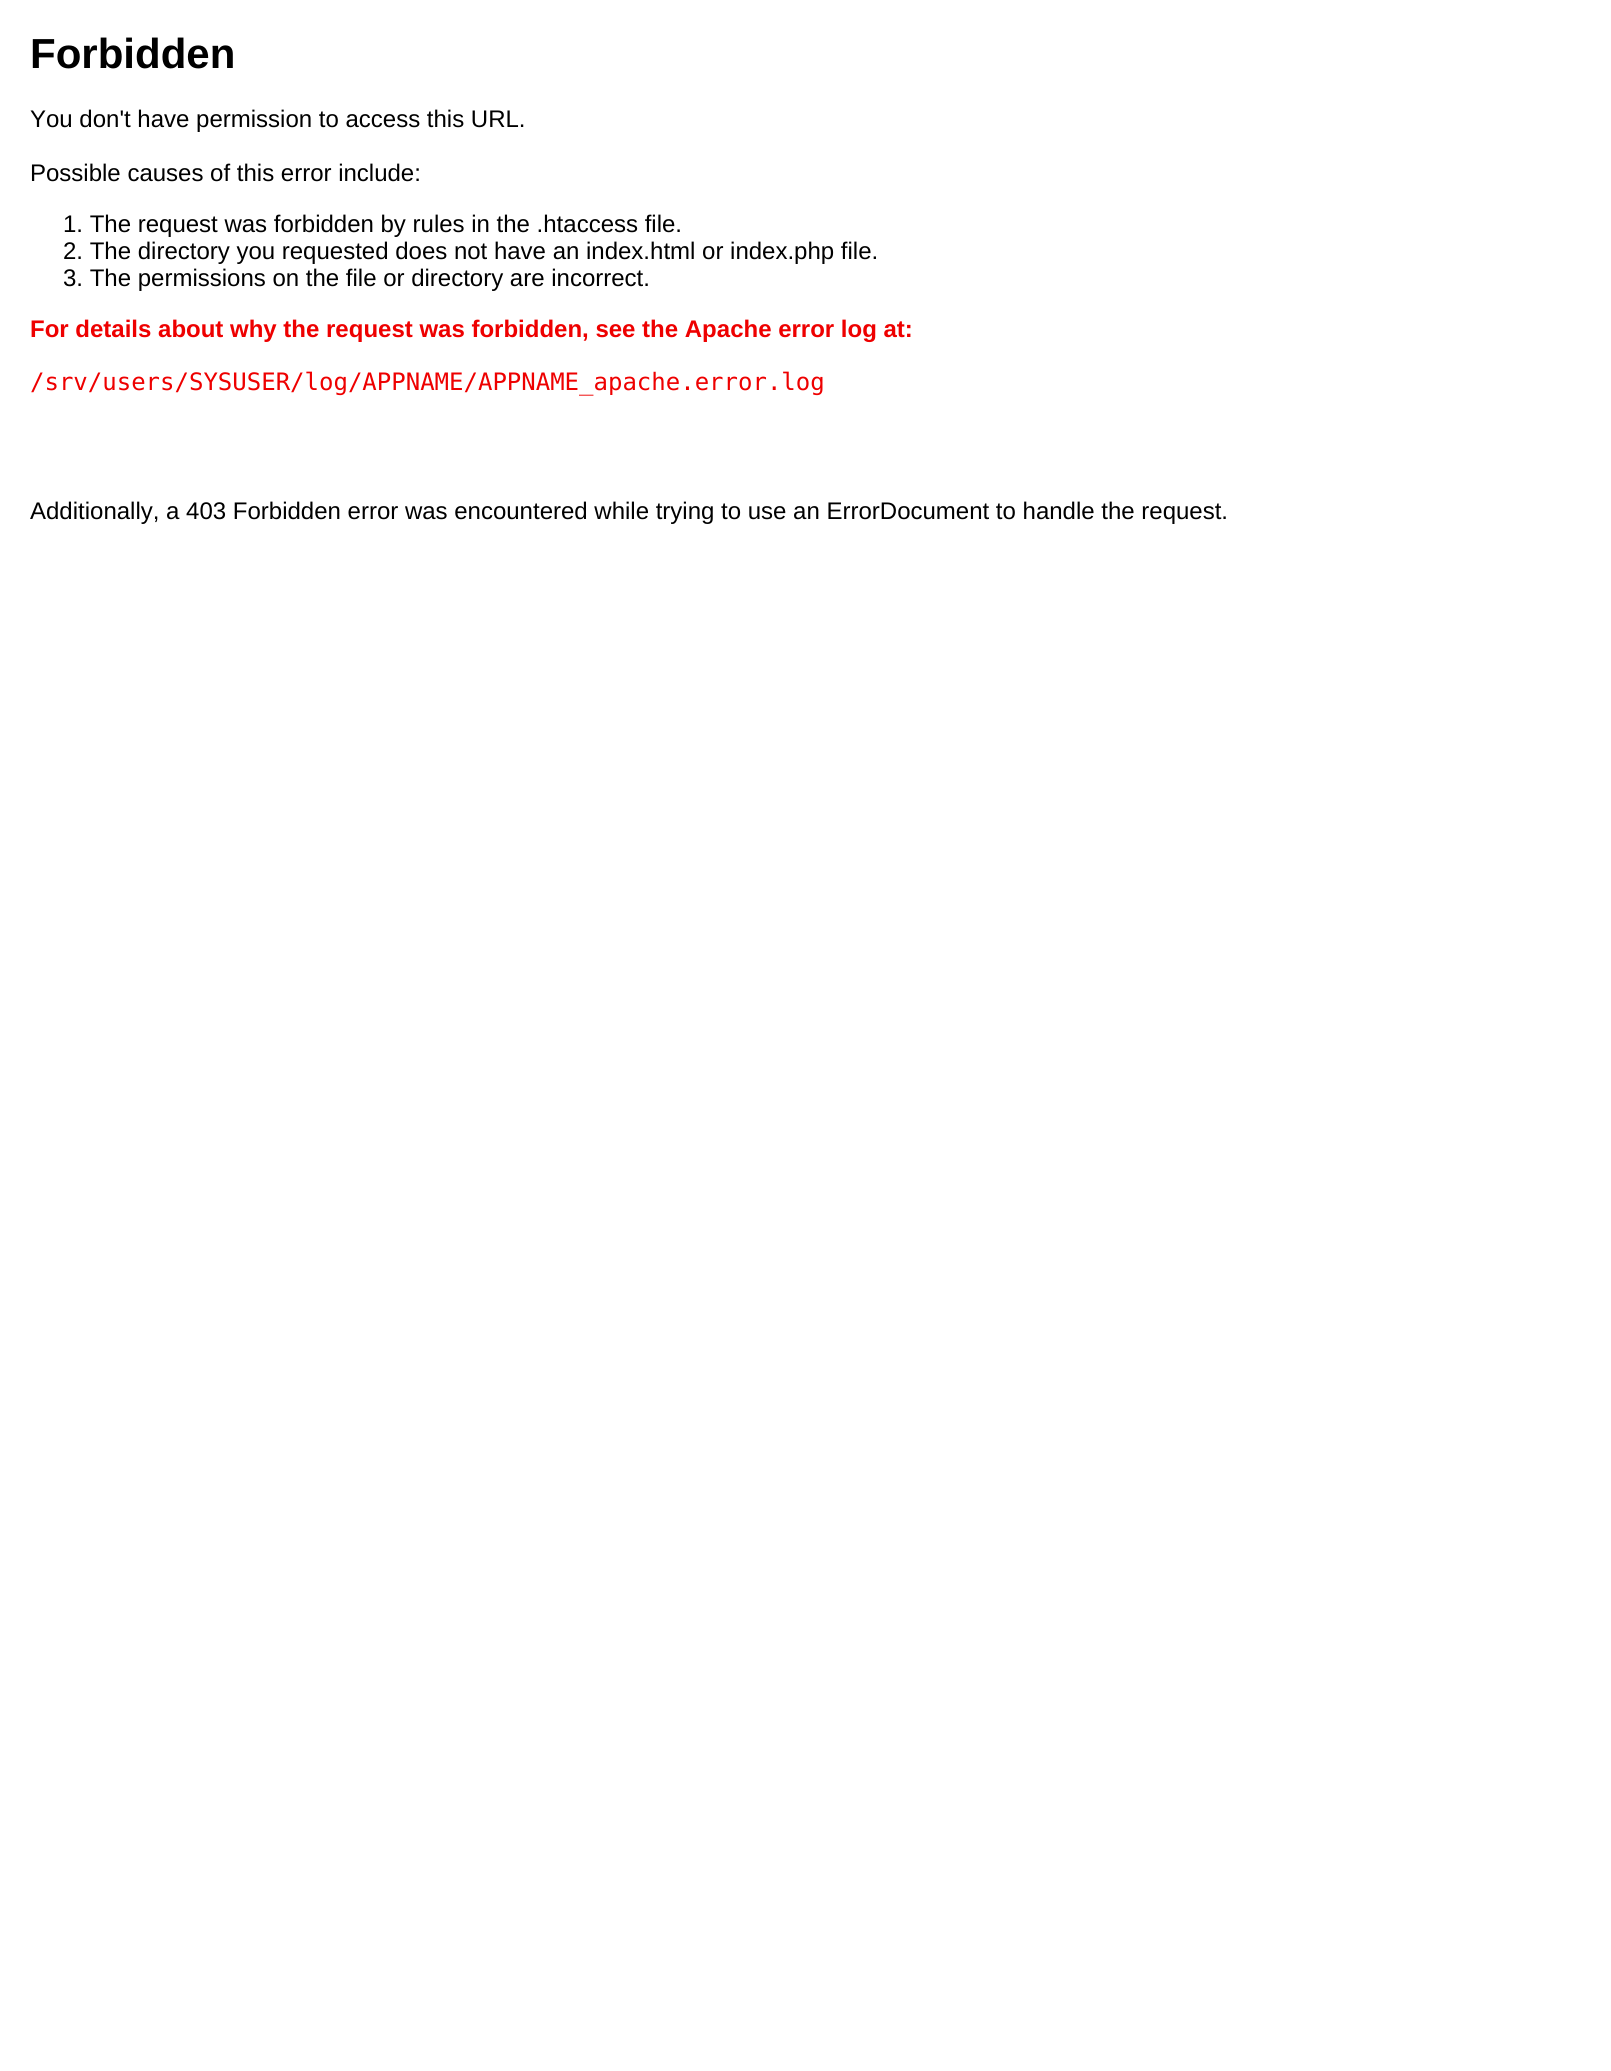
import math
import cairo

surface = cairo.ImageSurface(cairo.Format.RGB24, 1611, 2071)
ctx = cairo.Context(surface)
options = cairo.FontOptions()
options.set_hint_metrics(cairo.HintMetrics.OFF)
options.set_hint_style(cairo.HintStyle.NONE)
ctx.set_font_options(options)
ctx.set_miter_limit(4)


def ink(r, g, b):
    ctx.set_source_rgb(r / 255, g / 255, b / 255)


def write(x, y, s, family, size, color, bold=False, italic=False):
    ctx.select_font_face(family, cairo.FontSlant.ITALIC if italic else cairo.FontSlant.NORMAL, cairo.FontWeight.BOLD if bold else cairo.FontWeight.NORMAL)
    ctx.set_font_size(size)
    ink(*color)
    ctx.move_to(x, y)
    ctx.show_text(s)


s1 = dict(family="Liberation Sans", size=42, color=(0, 0, 0), bold=True)
s2 = dict(family="Liberation Sans", size=24, color=(0, 0, 0))
s3 = dict(family="Liberation Sans", size=24, color=(238, 0, 0), bold=True)
s4 = dict(family="DejaVu Sans Mono", size=24, color=(238, 0, 0))

ink(255, 255, 255)
ctx.paint()
write(30, 68, "Forbidden", **s1)
write(30, 127, "You don't have permission to access this URL.", **s2)
write(30, 181, "Possible causes of this error include:", **s2)
write(63, 232, "1. The request was forbidden by rules in the .htaccess file.", **s2)
write(63, 259, "2. The directory you requested does not have an index.html or index.php file.", **s2)
write(63, 286, "3. The permissions on the file or directory are incorrect.", **s2)
write(30, 337, "For details about why the request was forbidden, see the Apache error log at:", **s3)
write(30, 390, "/srv/users/SYSUSER/log/APPNAME/APPNAME_apache.error.log", **s4)
write(30, 519, "Additionally, a 403 Forbidden error was encountered while trying to use an ErrorDocument to handle the request.", **s2)
surface.write_to_png("screenshot.png")
